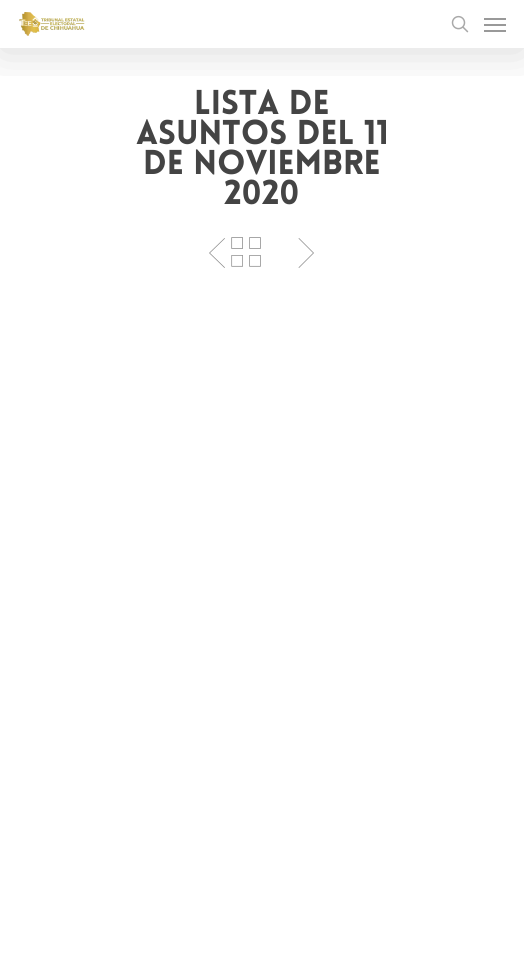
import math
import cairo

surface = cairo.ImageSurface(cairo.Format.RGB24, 524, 960)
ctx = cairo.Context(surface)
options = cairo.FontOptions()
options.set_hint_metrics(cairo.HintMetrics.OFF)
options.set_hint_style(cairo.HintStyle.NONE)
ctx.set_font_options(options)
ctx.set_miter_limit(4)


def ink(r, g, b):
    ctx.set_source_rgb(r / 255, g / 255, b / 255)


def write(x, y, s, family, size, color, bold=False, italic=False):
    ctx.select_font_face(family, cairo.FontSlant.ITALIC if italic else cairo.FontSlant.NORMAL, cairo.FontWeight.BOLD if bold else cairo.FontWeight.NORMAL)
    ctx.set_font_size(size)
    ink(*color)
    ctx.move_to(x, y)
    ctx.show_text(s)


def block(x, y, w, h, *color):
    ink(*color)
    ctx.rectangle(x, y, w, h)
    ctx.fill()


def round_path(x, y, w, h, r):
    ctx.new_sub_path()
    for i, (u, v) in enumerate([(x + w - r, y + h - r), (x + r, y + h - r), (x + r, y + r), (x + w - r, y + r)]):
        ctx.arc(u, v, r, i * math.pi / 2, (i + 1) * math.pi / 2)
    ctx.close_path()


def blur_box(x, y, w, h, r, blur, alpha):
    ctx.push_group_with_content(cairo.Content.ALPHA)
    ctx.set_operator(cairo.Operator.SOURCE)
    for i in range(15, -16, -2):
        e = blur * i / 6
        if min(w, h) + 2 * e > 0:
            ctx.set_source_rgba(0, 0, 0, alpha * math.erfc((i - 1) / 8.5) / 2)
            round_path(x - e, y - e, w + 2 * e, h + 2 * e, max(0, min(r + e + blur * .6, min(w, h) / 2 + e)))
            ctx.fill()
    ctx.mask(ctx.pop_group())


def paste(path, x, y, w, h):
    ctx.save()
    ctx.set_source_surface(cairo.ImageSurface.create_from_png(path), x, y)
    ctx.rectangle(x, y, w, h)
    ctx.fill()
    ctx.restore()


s1 = dict(family="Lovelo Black", size=33.75, color=(68, 68, 68))

ink(255, 255, 255)
ctx.paint()
ctx.save()
ctx.rectangle(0, 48, 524, 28)
ctx.clip()
ink(0, 0, 0)
blur_box(0, 3, 524, 48, 0, 22.5, 0.15)
ctx.restore()
paste("pic1.png", 19, 12, 66, 24)
paste("pic2.png", 451, 15, 18, 18)
block(484, 18, 22, 2, 153, 153, 153)
block(484, 30, 22, 2, 153, 153, 153)
block(484, 24, 22, 2, 153, 153, 153)
write(194, 114, "LISTA DE", **s1)
write(136, 144, "ASUNTOS DEL 11", **s1)
write(143, 174, "DE NOVIEMBRE", **s1)
write(224, 204, "2020", **s1)
paste("pic3.png", 231, 237, 30, 30)
ink(136, 136, 136)
ctx.new_path()
ctx.move_to(225, 238.5)
ctx.line_to(224.5, 238)
ctx.line_to(209, 253)
ctx.line_to(224.5, 268)
ctx.line_to(225, 267.5)
ctx.line_to(210, 253)
ctx.close_path()
ctx.fill()
ctx.new_path()
ctx.move_to(298.5, 238.5)
ctx.line_to(299, 238)
ctx.line_to(314, 253)
ctx.line_to(299, 268)
ctx.line_to(298.5, 267.5)
ctx.line_to(313, 253)
ctx.close_path()
ctx.fill()
surface.write_to_png("screenshot.png")
